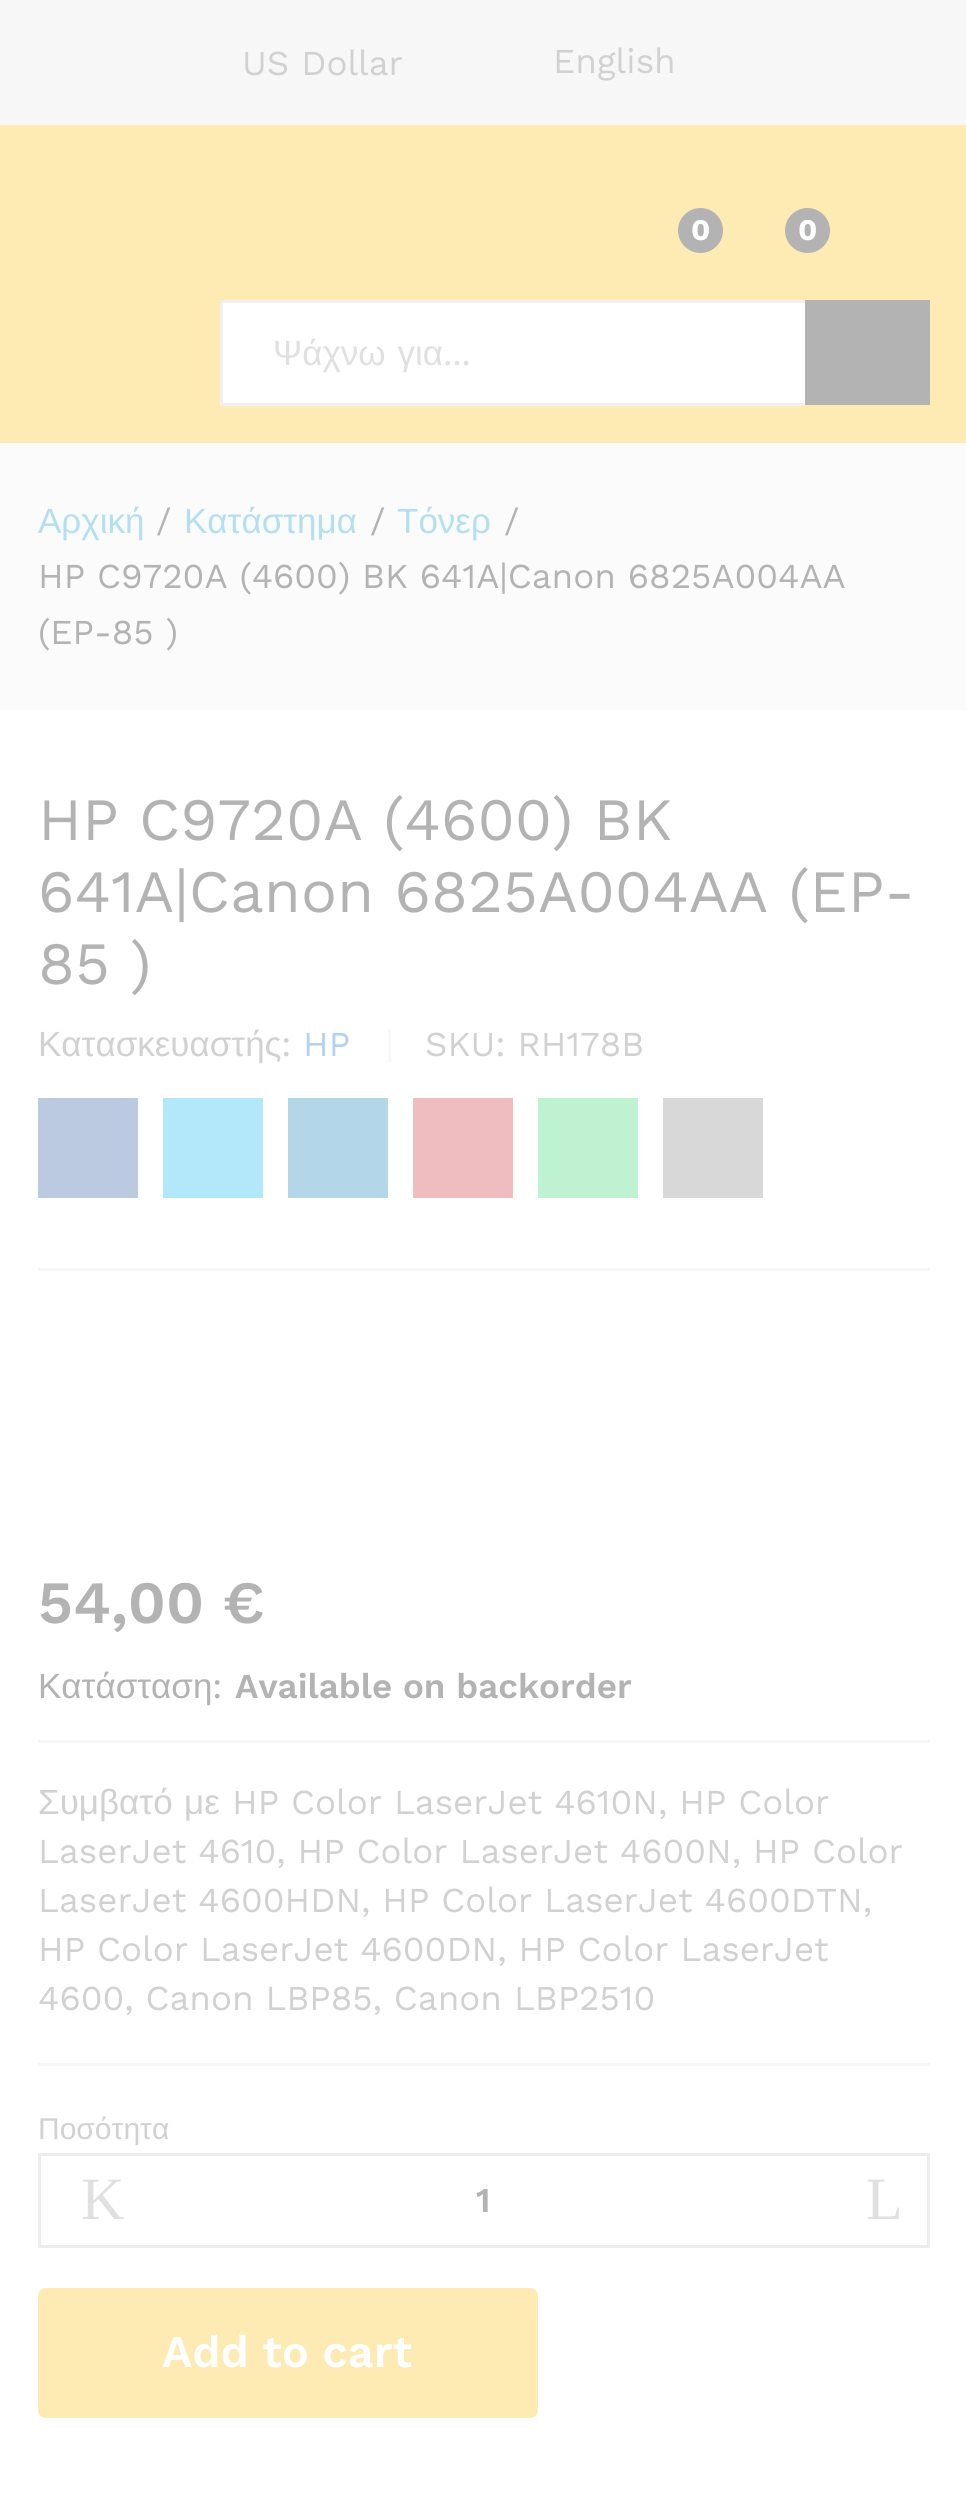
import math
import cairo

surface = cairo.ImageSurface(cairo.Format.RGB24, 966, 2505)
ctx = cairo.Context(surface)
options = cairo.FontOptions()
options.set_hint_metrics(cairo.HintMetrics.OFF)
options.set_hint_style(cairo.HintStyle.NONE)
ctx.set_font_options(options)
ctx.set_miter_limit(4)


def ink(r, g, b):
    ctx.set_source_rgb(r / 255, g / 255, b / 255)


def write(x, y, s, family, size, color, bold=False, italic=False):
    ctx.select_font_face(family, cairo.FontSlant.ITALIC if italic else cairo.FontSlant.NORMAL, cairo.FontWeight.BOLD if bold else cairo.FontWeight.NORMAL)
    ctx.set_font_size(size)
    ink(*color)
    ctx.move_to(x, y)
    ctx.show_text(s)


def write_spaced(x, y, s, letter, word):
    ctx.move_to(x, y)
    for ch in s:
        ctx.show_text(ch)
        ctx.rel_move_to(letter + word * (ch == ' '), 0)


def block(x, y, w, h, *color):
    ink(*color)
    ctx.rectangle(x, y, w, h)
    ctx.fill()


def round_path(x, y, w, h, r):
    ctx.new_sub_path()
    for i, (u, v) in enumerate([(x + w - r, y + h - r), (x + r, y + h - r), (x + r, y + r), (x + w - r, y + r)]):
        ctx.arc(u, v, r, i * math.pi / 2, (i + 1) * math.pi / 2)
    ctx.close_path()


s1 = dict(family="Work Sans", size=35, color=(209, 209, 209))
s2 = dict(family="Work Sans", size=30, color=(255, 255, 255), bold=True)
s3 = dict(family="Work Sans", size=35, color=(224, 224, 224))
s4 = dict(family="Liberation Sans", size=35, color=(179, 224, 240))
s5 = dict(family="Work Sans", size=35, color=(179, 179, 179))
s6 = dict(family="Work Sans", size=60, color=(179, 179, 179))
s7 = dict(family="Liberation Sans", size=35, color=(209, 209, 209))
s8 = dict(family="Work Sans", size=35, color=(179, 209, 240))
s9 = dict(family="Work Sans SemiBold", size=60, color=(179, 179, 179))
s10 = dict(family="Liberation Sans", size=35, color=(179, 179, 179))
s11 = dict(family="Work Sans SemiBold", size=35, color=(179, 179, 179))
s12 = dict(family="Liberation Sans", size=30, color=(209, 209, 209))
s13 = dict(family="Liberation Serif", size=60, color=(224, 224, 224))
s14 = dict(family="Work Sans SemiBold", size=45, color=(255, 255, 255))

ink(255, 255, 255)
ctx.paint()
block(0, 0, 966, 125, 247, 247, 247)
write(242, 75, "US Dollar", **s1)
write(553, 73, "English", **s1)
block(0, 125, 966, 318, 254, 234, 179)
ink(179, 179, 179)
ctx.new_path()
ctx.arc(700.5, 230.5, 22.5, 0, 2 * math.pi)
ctx.fill()
write(691, 240, "0", **s2)
ink(179, 179, 179)
ctx.new_path()
ctx.arc(807.5, 230.5, 22.5, 0, 2 * math.pi)
ctx.fill()
write(798, 240, "0", **s2)
block(223, 303, 582, 100, 255, 255, 255)
block(220, 300, 585, 3, 240, 240, 240)
block(220, 403, 585, 3, 240, 240, 240)
block(220, 300, 3, 105, 240, 240, 240)
ctx.select_font_face("Liberation Sans")
ctx.set_font_size(35)
ink(224, 224, 224)
write_spaced(273, 365, "Ψάχνω για", 0, 2)
write(443, 365, "...", **s3)
block(805, 300, 125, 105, 179, 179, 179)
block(0, 443, 966, 267, 251, 251, 251)
write(38, 533, "Αρχική", **s4)
write(156, 533, "/", **s5)
write(184, 533, "Κατάστημα", **s4)
write(370, 533, "/", **s5)
write(397, 533, "Τόνερ", **s4)
write(504, 533, "/", **s5)
write(38, 588, "HP C9720A (4600) BK 641A|Canon 6825A004AA", **s5)
write(38, 644, "(EP-85 )", **s5)
block(38, 1268, 892, 3, 246, 246, 246)
write(38, 840, "HP C9720A (4600) BK", **s6)
write(38, 912, "641A|Canon 6825A004AA (EP-", **s6)
write(38, 984, "85 )", **s6)
write(38, 1056, "Κατασκευαστής", **s7)
write(281, 1056, ":", **s1)
write(303, 1056, "HP", **s8)
block(388, 1030, 3, 33, 248, 248, 248)
write(425, 1056, "SKU: RH178B", **s1)
block(38, 1098, 100, 100, 187, 202, 225)
block(163, 1098, 100, 100, 179, 231, 250)
block(288, 1098, 100, 100, 179, 214, 233)
block(413, 1098, 100, 100, 239, 189, 192)
block(538, 1098, 100, 100, 190, 242, 209)
block(663, 1098, 100, 100, 216, 216, 216)
write(38, 1623, "54,00 €", **s9)
block(38, 1740, 892, 3, 246, 246, 246)
write(38, 1698, "Κατάσταση", **s10)
write(212, 1698, ":", **s5)
write(235, 1698, "Available on backorder", **s11)
block(38, 2063, 892, 3, 246, 246, 246)
write(38, 1814, "Συμβατό", **s7)
write(184, 1814, "με", **s7)
write(232, 1814, "HP Color LaserJet 4610N, HP Color", **s1)
write(38, 1863, "LaserJet 4610, HP Color LaserJet 4600N, HP Color", **s1)
write(38, 1912, "LaserJet 4600HDN, HP Color LaserJet 4600DTN,", **s1)
write(38, 1961, "HP Color LaserJet 4600DN, HP Color LaserJet", **s1)
write(38, 2010, "4600, Canon LBP85, Canon LBP2510", **s1)
write(38, 2139, "Ποσότητα", **s12)
ctx.rectangle(39.5, 2154.5, 889, 92)
ink(236, 236, 236)
ctx.set_line_width(3)
ctx.stroke()
write(81, 2219, "K", **s13)
write(476, 2212, "1", **s11)
write(866, 2219, "L", **s13)
ink(254, 234, 179)
round_path(38, 2288, 500, 130, 8)
ctx.fill()
write(162, 2367, "Add to cart", **s14)
surface.write_to_png("screenshot.png")
